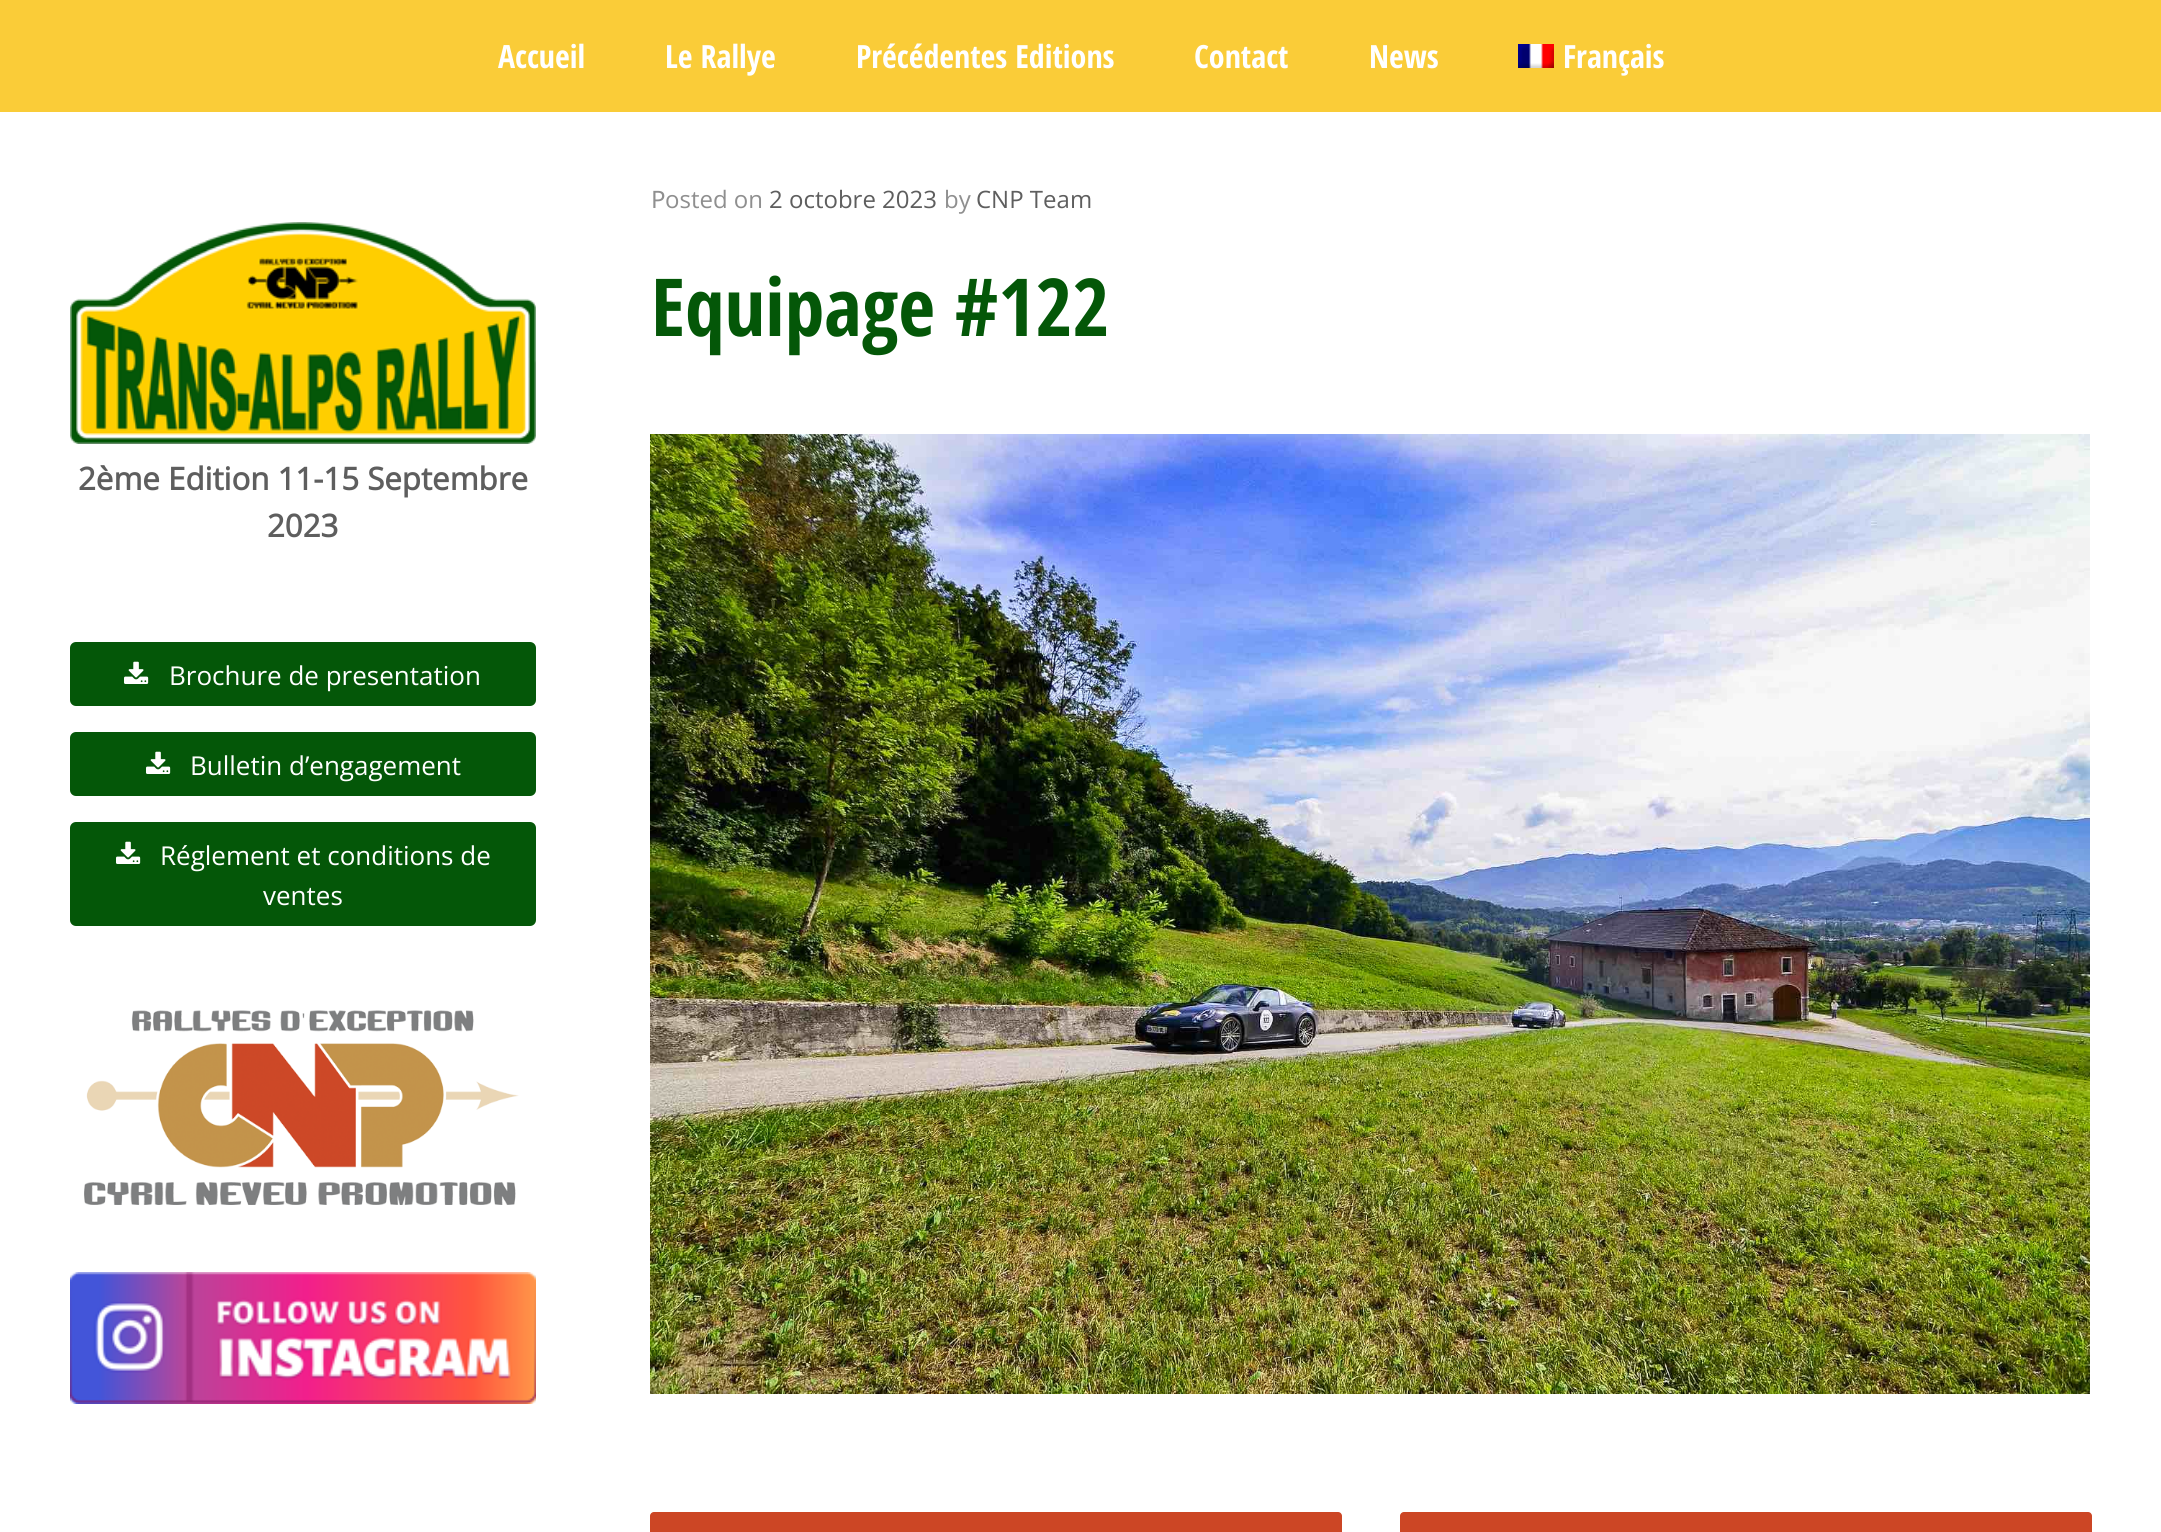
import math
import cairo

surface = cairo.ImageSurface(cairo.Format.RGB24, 2161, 1532)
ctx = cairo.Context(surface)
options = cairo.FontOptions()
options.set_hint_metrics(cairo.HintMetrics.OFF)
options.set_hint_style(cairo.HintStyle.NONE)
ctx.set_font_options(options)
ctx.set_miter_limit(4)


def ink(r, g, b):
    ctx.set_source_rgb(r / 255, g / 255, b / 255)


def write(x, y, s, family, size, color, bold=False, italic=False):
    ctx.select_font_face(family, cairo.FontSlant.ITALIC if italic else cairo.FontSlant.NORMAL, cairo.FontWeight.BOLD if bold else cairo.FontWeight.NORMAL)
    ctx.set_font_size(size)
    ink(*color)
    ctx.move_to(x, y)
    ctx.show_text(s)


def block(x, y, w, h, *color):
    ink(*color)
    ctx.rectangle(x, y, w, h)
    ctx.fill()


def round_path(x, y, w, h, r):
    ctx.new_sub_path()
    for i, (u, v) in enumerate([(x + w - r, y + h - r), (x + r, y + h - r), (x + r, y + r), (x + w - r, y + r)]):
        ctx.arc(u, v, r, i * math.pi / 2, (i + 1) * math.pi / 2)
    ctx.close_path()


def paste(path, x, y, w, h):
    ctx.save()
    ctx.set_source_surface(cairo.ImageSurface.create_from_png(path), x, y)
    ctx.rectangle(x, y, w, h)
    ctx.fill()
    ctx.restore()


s1 = dict(family="Open Sans Condensed", size=32, color=(255, 255, 255), bold=True)
s2 = dict(family="Noto Sans", size=24, color=(143, 143, 143))
s3 = dict(family="Open Sans", size=24, color=(143, 143, 143))
s4 = dict(family="Open Sans", size=24, color=(94, 94, 94))
s5 = dict(family="Open Sans Condensed", size=80, color=(4, 87, 8), bold=True)
s6 = dict(family="Open Sans", size=31.25, color=(94, 94, 94), bold=True)
s7 = dict(family="Open Sans", size=26, color=(255, 255, 255))

ink(250, 204, 56)
ctx.paint()
write(498, 68, "Accueil", **s1)
write(665, 68, "Le Rallye", **s1)
write(856, 68, "Précédentes Editions", **s1)
write(1194, 68, "Contact", **s1)
write(1369, 68, "News", **s1)
paste("pic1.png", 1518, 44, 36, 24)
write(1563, 68, "Français", **s1)
block(0, 112, 2161, 1420, 255, 255, 255)
write(651, 208, "P", **s2)
write(665, 208, "osted on", **s3)
write(769, 208, "2 octobre 2023", **s4)
write(944, 208, "by", **s3)
write(976, 208, "CNP Team", **s4)
write(651, 336, "Equipage #122", **s5)
paste("pic2.png", 650, 434, 1440, 960)
ink(204, 70, 37)
round_path(650, 1512, 692, 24, 4)
ctx.fill()
round_path(1400, 1512, 692, 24, 4)
ctx.fill()
paste("pic3.png", 70, 222, 466, 222)
write(78, 490, "2ème Edition 11-15 Septembre", **s6)
write(267, 537, "2023", **s6)
ink(4, 87, 8)
round_path(70, 642, 466, 64, 6)
ctx.fill()
paste("pic4.png", 124, 661, 25, 23)
write(169, 685, "Brochure de presentation", **s7)
ink(4, 87, 8)
round_path(70, 732, 466, 64, 6)
ctx.fill()
paste("pic4.png", 146, 751, 25, 23)
write(190, 775, "Bulletin d’engagement", **s7)
ink(4, 87, 8)
round_path(70, 822, 466, 104, 6)
ctx.fill()
paste("pic4.png", 116, 841, 25, 23)
write(160, 865, "Réglement et conditions de", **s7)
write(263, 905, "ventes", **s7)
paste("pic5.png", 84, 1010, 435, 195)
paste("pic6.png", 70, 1272, 466, 132)
surface.write_to_png("screenshot.png")
